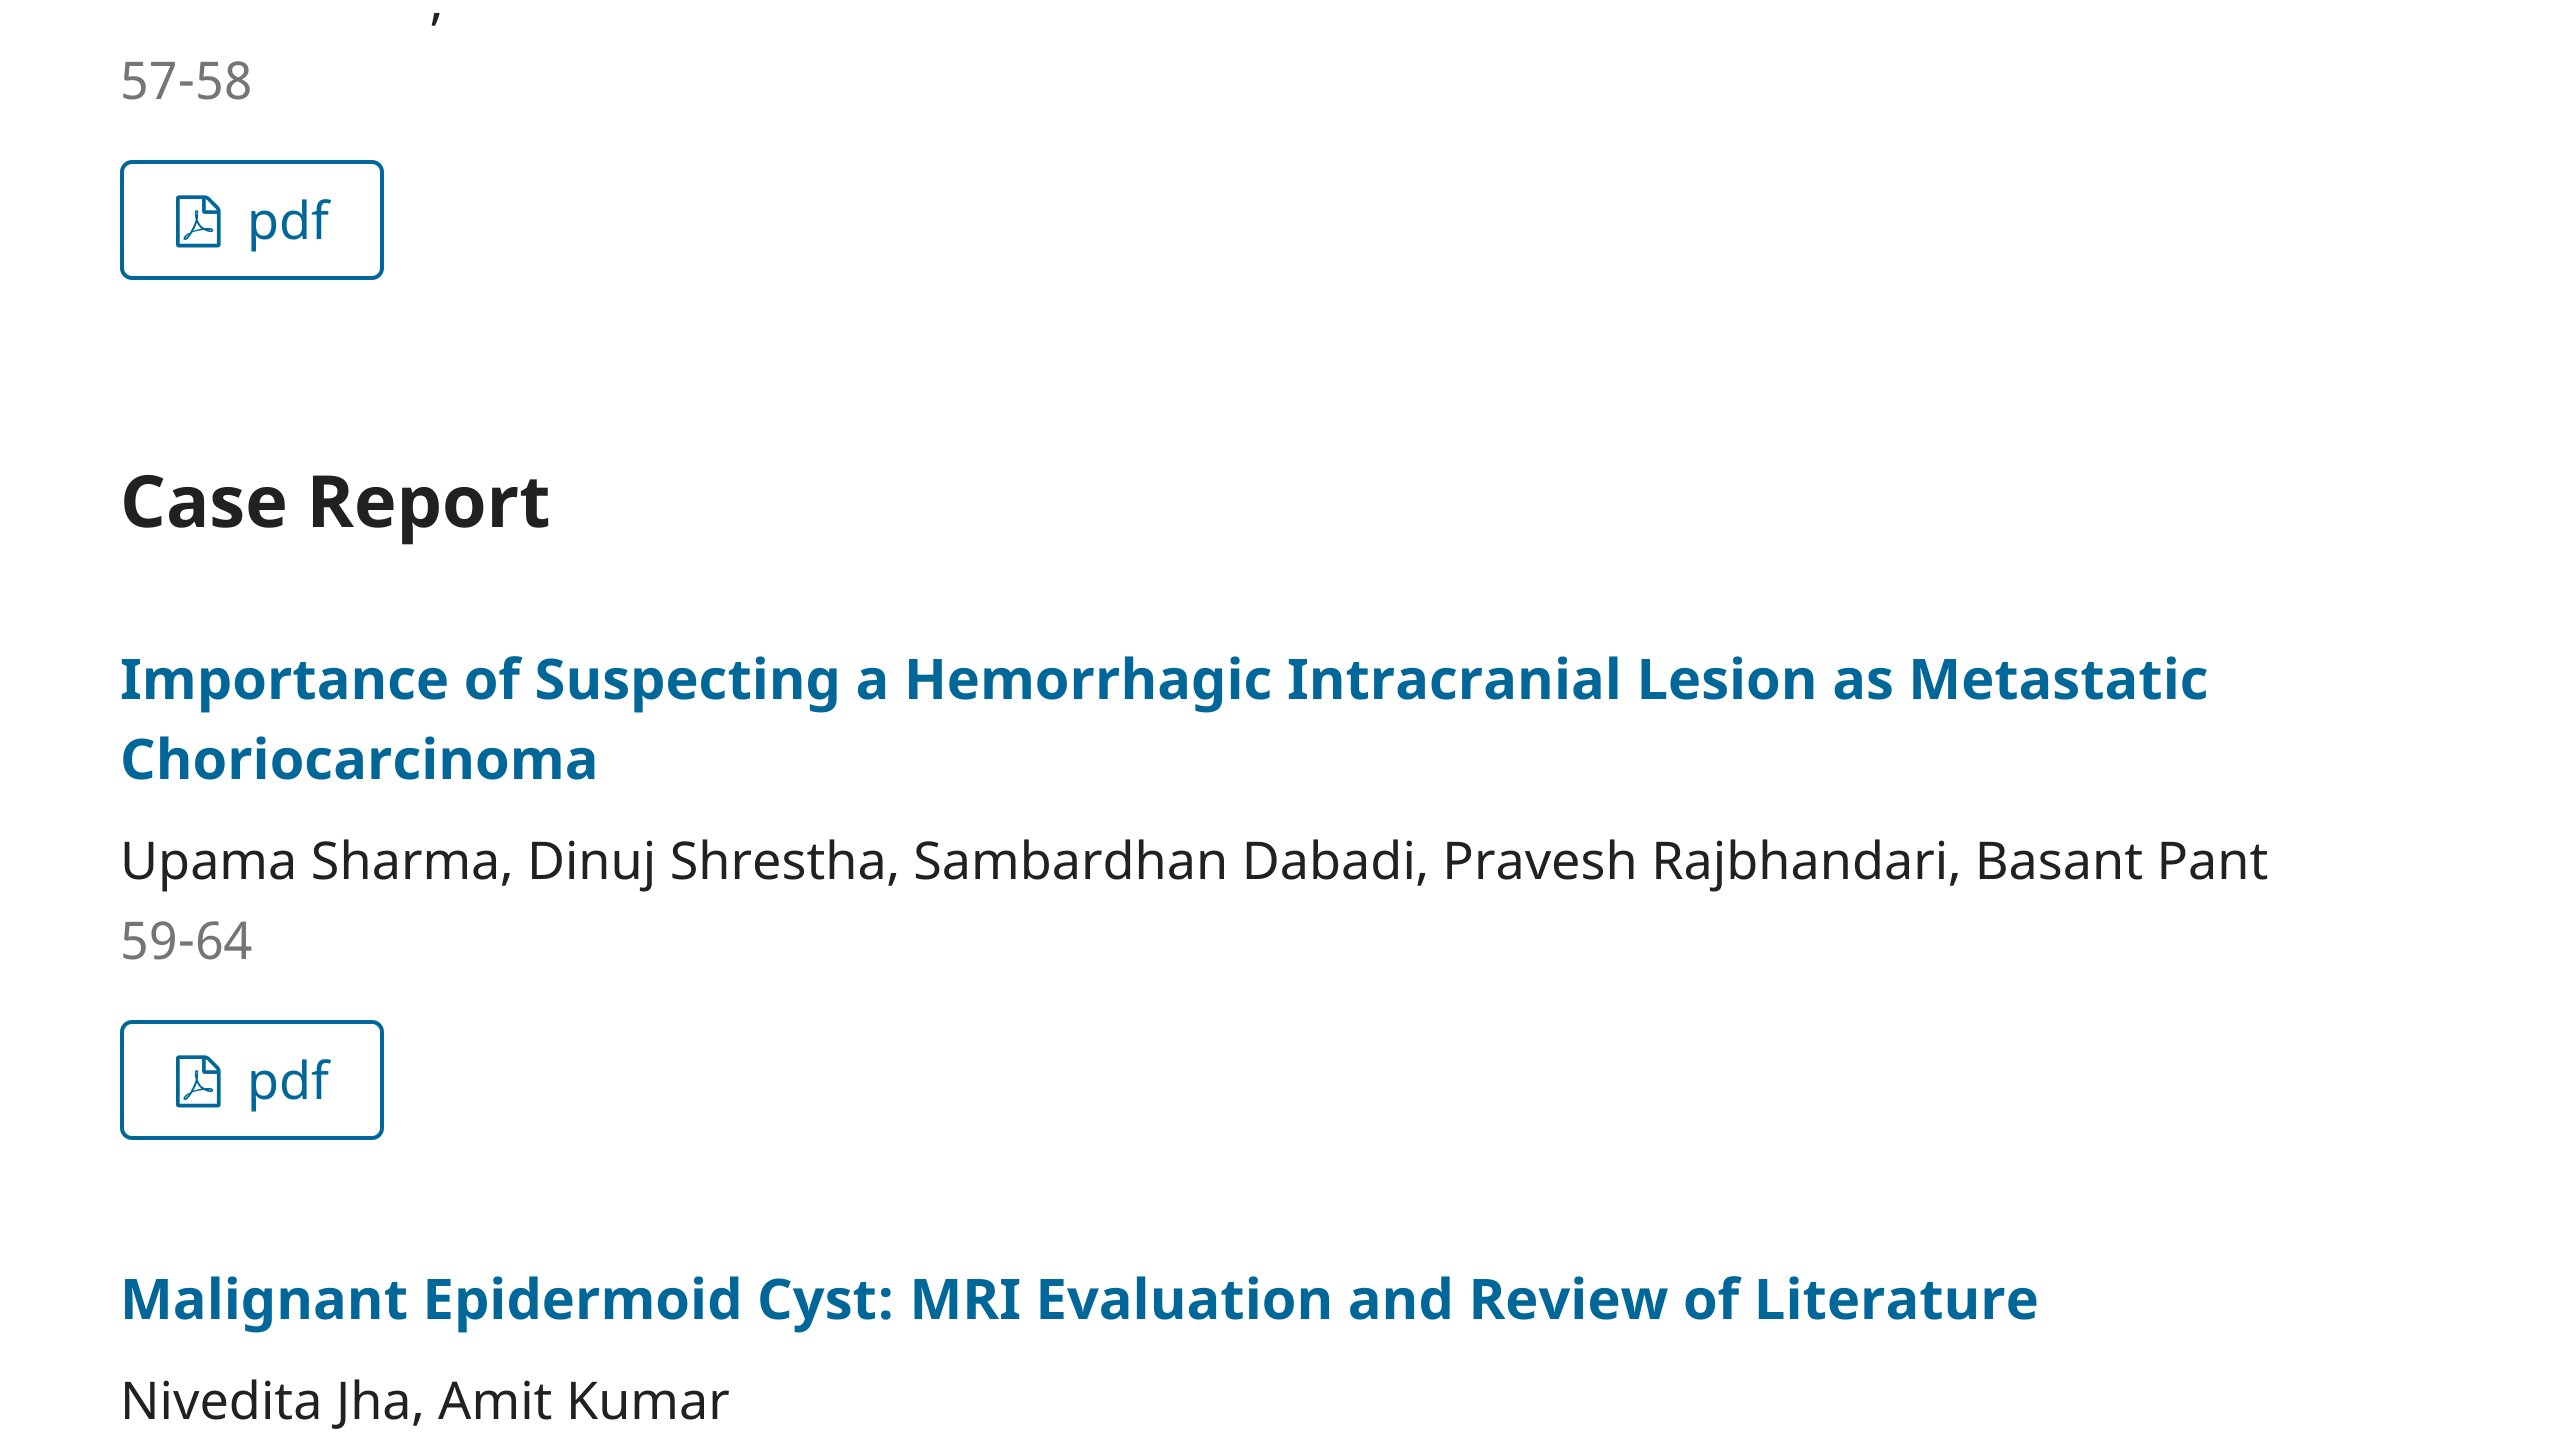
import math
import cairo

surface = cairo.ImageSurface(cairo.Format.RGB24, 2569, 1446)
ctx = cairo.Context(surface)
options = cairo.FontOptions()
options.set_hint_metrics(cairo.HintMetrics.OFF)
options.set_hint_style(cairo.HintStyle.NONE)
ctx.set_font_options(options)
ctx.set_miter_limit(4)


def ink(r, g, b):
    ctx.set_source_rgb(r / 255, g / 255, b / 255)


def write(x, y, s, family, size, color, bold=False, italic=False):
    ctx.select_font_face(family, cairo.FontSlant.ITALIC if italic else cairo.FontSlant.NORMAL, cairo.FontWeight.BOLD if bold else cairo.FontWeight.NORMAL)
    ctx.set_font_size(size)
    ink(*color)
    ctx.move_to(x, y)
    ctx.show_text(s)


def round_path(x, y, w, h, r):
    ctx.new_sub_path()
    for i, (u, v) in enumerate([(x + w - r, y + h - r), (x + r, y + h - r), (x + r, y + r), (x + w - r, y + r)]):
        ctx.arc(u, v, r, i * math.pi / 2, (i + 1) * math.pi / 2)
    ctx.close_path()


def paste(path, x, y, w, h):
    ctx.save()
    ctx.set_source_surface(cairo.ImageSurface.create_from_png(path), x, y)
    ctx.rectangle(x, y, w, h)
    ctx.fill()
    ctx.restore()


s1 = dict(family="Noto Sans", size=52.1, color=(33, 33, 33))
s2 = dict(family="Noto Sans", size=52.1, color=(117, 117, 117))
s3 = dict(family="Noto Sans", size=52.1, color=(0, 103, 152))
s4 = dict(family="Noto Sans", size=72, color=(33, 33, 33), bold=True)
s5 = dict(family="Noto Sans", size=56, color=(0, 103, 152), bold=True)

ink(255, 255, 255)
ctx.paint()
write(430, 19, ",", **s1)
write(120, 99, "57-58", **s2)
round_path(122, 162, 260, 116, 10)
ink(0, 103, 152)
ctx.set_line_width(4)
ctx.stroke()
paste("pic1.png", 176, 195, 45, 53)
write(247, 239, "pdf", **s3)
write(120, 527, "Case Report", **s4)
write(120, 699, "Importance of Suspecting a Hemorrhagic Intracranial Lesion as Metastatic", **s5)
write(120, 779, "Choriocarcinoma", **s5)
write(120, 879, "Upama Sharma, Dinuj Shrestha, Sambardhan Dabadi, Pravesh Rajbhandari, Basant Pant", **s1)
write(120, 959, "59-64", **s2)
round_path(122, 1022, 260, 116, 10)
ink(0, 103, 152)
ctx.stroke()
paste("pic1.png", 176, 1055, 45, 53)
write(247, 1099, "pdf", **s3)
write(120, 1319, "Malignant Epidermoid Cyst: MRI Evaluation and Review of Literature", **s5)
write(120, 1419, "Nivedita Jha, Amit Kumar", **s1)
surface.write_to_png("screenshot.png")
